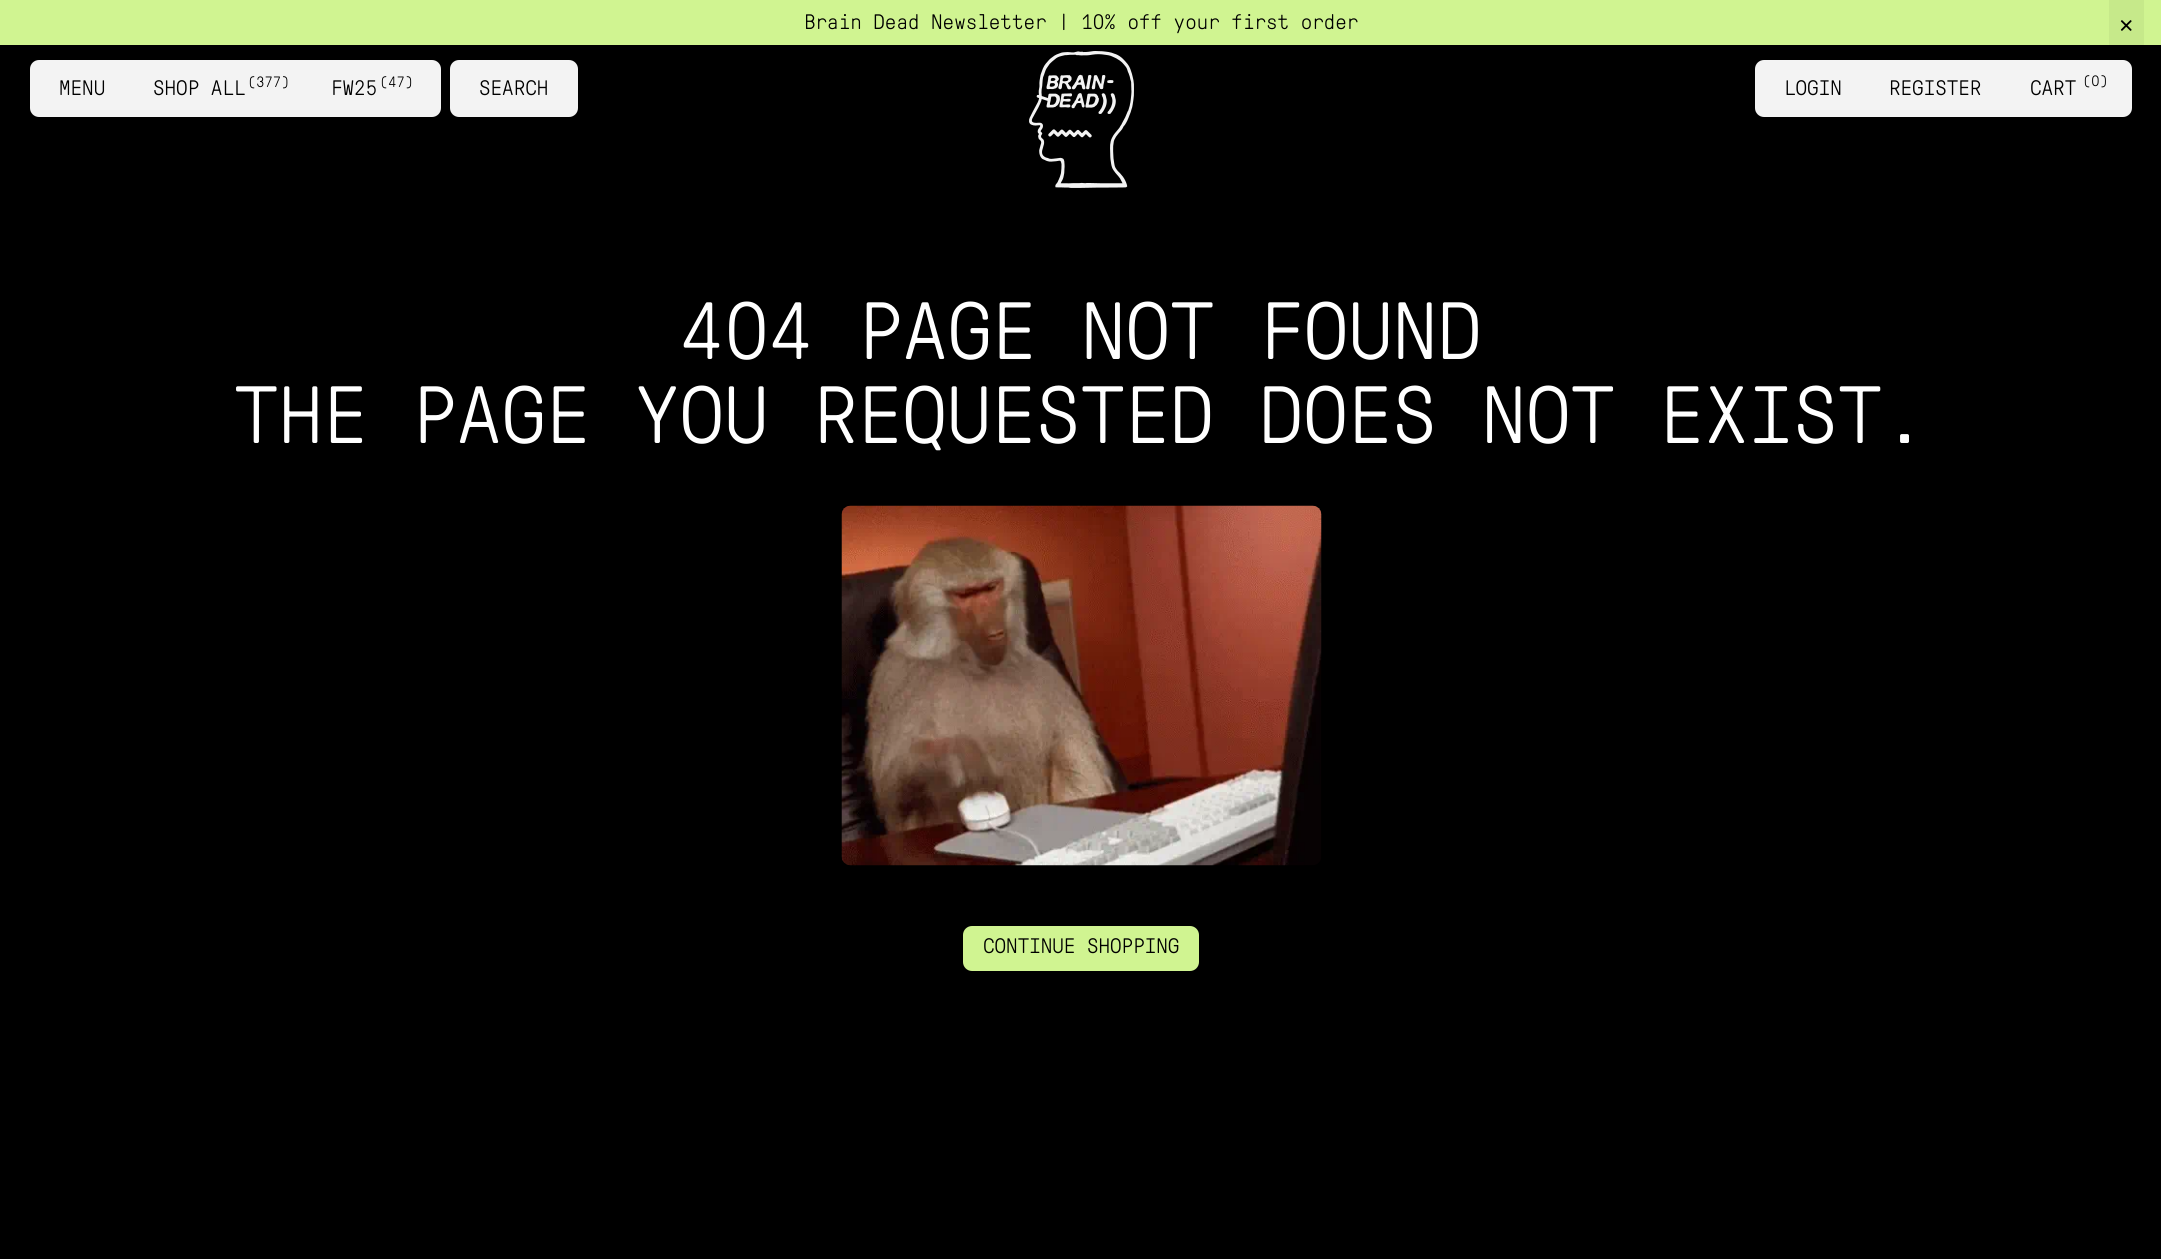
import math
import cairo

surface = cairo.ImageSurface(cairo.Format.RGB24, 2161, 1259)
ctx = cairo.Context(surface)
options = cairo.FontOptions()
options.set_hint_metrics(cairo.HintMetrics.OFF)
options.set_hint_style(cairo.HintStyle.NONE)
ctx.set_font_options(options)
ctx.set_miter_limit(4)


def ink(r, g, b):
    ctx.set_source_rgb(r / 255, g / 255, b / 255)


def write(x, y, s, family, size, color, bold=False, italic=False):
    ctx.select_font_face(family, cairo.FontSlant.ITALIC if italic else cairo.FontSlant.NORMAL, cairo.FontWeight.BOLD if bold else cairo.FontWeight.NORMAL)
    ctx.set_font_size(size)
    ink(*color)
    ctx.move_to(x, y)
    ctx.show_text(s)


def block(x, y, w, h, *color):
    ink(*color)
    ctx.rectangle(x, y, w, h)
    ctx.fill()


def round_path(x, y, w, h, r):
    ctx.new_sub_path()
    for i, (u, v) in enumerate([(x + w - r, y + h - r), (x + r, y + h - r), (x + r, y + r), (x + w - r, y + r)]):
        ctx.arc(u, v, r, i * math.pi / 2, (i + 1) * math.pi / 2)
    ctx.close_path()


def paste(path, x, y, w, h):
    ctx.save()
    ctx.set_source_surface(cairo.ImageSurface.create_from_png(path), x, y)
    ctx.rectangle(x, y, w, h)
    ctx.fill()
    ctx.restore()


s1 = dict(family="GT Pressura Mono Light", size=21, color=(0, 0, 0))
s2 = dict(family="GT Pressura Mono Light", size=30, color=(0, 0, 0))
s3 = dict(family="GT Pressura Mono Light", size=15, color=(0, 0, 0))
s4 = dict(family="GT Pressura Mono Light", size=81, color=(255, 255, 255))

ink(0, 0, 0)
ctx.paint()
block(0, 0, 2161, 45, 208, 244, 145)
write(804, 29, "Brain Dead Newsletter | 10% off your first order", **s1)
ctx.set_source_rgba(0, 0, 0, 0.05)
ctx.rectangle(2109, 0, 35, 45)
ctx.fill()
write(2118, 33, "×", **s2)
ink(243, 243, 243)
round_path(30, 60, 411, 57, 9)
ctx.fill()
write(59, 95, "MENU", **s1)
write(153, 95, "SHOP ALL", **s1)
write(248, 87, "(377)", **s3)
write(331, 95, "FW25", **s1)
write(380, 87, "(47)", **s3)
ink(243, 243, 243)
round_path(450, 60, 128, 57, 9)
ctx.fill()
write(479, 95, "SEARCH", **s1)
ink(243, 243, 243)
round_path(1755, 60, 377, 57, 9)
ctx.fill()
write(1784, 95, "LOGIN", **s1)
write(1889, 95, "REGISTER", **s1)
write(2030, 95, "CART", **s1)
write(2083, 86, "(0)", **s3)
paste("pic1.png", 1029, 51, 105, 137)
write(680, 359, "404 PAGE NOT FOUND", **s4)
write(234, 443, "THE PAGE YOU REQUESTED DOES NOT EXIST.", **s4)
paste("pic2.png", 841, 505, 481, 361)
ink(208, 244, 145)
round_path(964, 927, 234, 43, 8)
ctx.fill_preserve()
ctx.stroke()
write(983, 953, "CONTINUE SHOPPING", **s1)
surface.write_to_png("screenshot.png")
